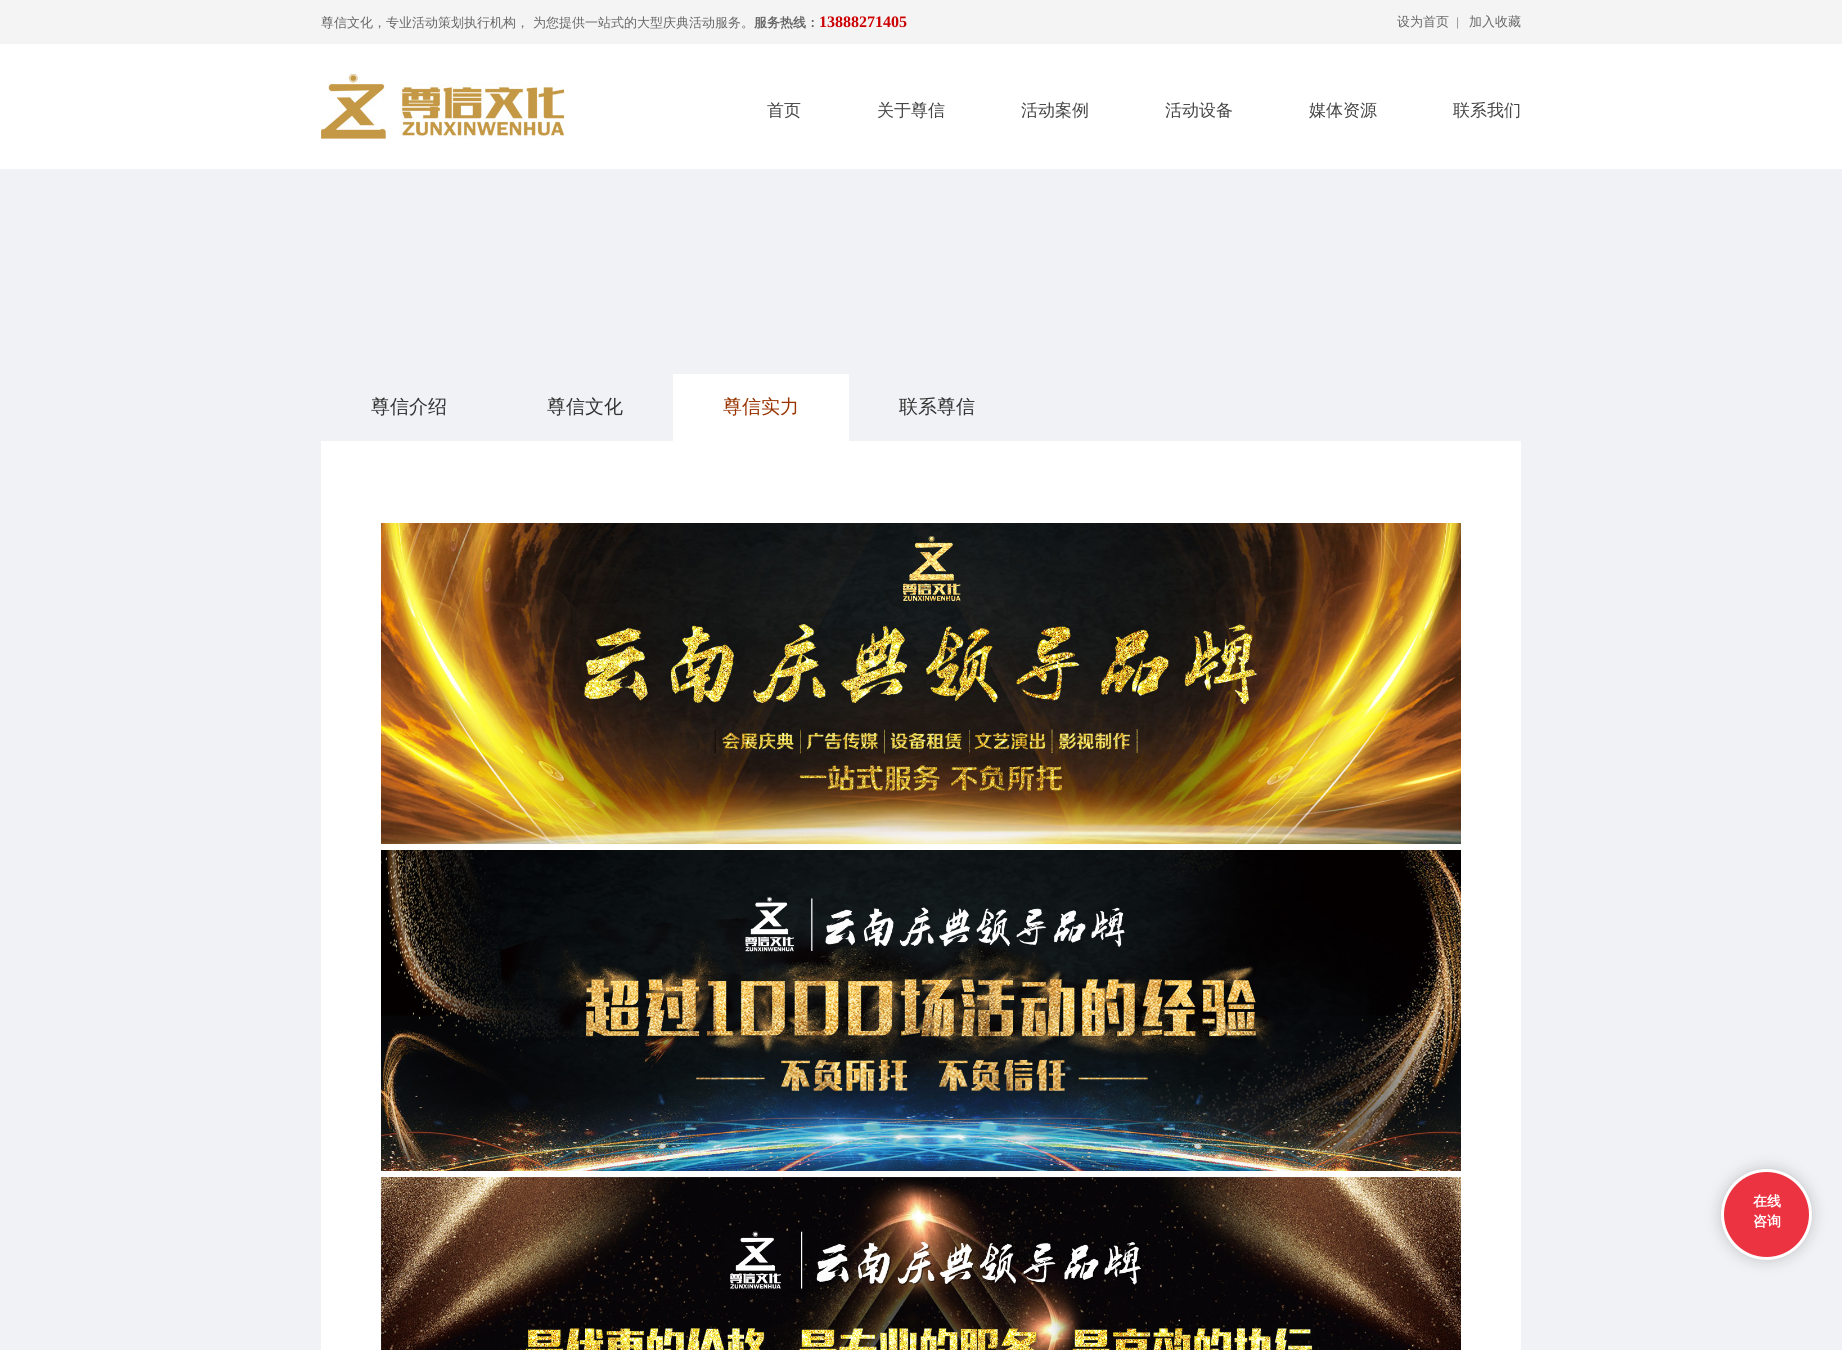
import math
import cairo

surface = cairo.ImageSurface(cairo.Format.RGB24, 1842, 1350)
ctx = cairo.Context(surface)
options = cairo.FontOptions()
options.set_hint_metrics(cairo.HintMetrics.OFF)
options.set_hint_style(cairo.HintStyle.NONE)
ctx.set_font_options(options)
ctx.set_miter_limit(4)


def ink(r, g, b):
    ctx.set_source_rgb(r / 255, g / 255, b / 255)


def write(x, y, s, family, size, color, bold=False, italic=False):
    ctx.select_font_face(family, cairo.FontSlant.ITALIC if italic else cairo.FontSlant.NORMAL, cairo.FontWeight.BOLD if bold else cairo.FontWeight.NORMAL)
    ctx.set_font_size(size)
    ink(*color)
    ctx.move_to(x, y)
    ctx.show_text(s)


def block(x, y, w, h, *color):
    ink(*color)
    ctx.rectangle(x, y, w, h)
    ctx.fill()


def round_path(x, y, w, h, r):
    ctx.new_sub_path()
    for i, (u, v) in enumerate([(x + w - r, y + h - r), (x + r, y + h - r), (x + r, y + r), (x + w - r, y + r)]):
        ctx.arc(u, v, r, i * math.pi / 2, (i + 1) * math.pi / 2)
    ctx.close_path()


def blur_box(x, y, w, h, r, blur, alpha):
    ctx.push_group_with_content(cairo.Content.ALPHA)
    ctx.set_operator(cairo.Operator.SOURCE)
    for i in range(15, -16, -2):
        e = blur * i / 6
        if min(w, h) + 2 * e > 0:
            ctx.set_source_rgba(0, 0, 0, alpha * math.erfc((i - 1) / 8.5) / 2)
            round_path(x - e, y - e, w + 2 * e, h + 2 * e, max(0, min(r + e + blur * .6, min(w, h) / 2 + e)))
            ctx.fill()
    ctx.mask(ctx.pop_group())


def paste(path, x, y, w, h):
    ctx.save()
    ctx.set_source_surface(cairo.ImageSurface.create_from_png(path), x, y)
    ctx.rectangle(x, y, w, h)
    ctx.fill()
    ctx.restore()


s1 = dict(family="WenQuanYi Zen Hei Medium", size=13, color=(102, 102, 102))
s2 = dict(family="WenQuanYi Zen Hei", size=13, color=(102, 102, 102), bold=True)
s3 = dict(family="Liberation Serif", size=16, color=(204, 0, 0), bold=True)
s4 = dict(family="Liberation Sans", size=12, color=(153, 153, 153))
s5 = dict(family="WenQuanYi Zen Hei Medium", size=17, color=(68, 68, 68))
s6 = dict(family="WenQuanYi Zen Hei Medium", size=19, color=(51, 51, 51))
s7 = dict(family="WenQuanYi Zen Hei Medium", size=19, color=(153, 51, 0))
s8 = dict(family="WenQuanYi Zen Hei", size=14, color=(255, 255, 255), bold=True)

ink(240, 242, 245)
ctx.paint()
block(0, 0, 1842, 44, 244, 244, 244)
write(321, 27, "尊信文化，专业活动策划执行机构， 为您提供一站式的大型庆典活动服务。", **s1)
write(754, 27, "服务热线：", **s2)
write(819, 27, "13888271405", **s3)
write(1397, 26, "设为首页", **s1)
write(1456, 26, "|", **s4)
write(1469, 26, "加入收藏", **s1)
block(0, 44, 1842, 125, 255, 255, 255)
paste("pic1.png", 321, 74, 243, 65)
write(767, 116, "首页", **s5)
write(877, 116, "关于尊信", **s5)
write(1021, 116, "活动案例", **s5)
write(1165, 116, "活动设备", **s5)
write(1309, 116, "媒体资源", **s5)
write(1453, 116, "联系我们", **s5)
write(371, 413, "尊信介绍", **s6)
write(547, 413, "尊信文化", **s6)
block(673, 374, 176, 67, 255, 255, 255)
write(723, 413, "尊信实力", **s7)
write(899, 413, "联系尊信", **s6)
block(321, 441, 1200, 909, 255, 255, 255)
paste("pic2.png", 381, 523, 1080, 321)
paste("pic3.png", 381, 850, 1080, 321)
paste("pic4.png", 381, 1177, 1080, 173)
ink(0, 0, 0)
blur_box(1721, 1169, 91, 91, 45.5, 7.5, 0.2)
ink(235, 51, 65)
ctx.arc(1766.5, 1214.5, 44, 0, 2 * math.pi)
ctx.fill_preserve()
ink(255, 255, 255)
ctx.set_line_width(3)
ctx.stroke()
write(1753, 1206, "在线", **s8)
write(1753, 1226, "咨询", **s8)
surface.write_to_png("screenshot.png")
